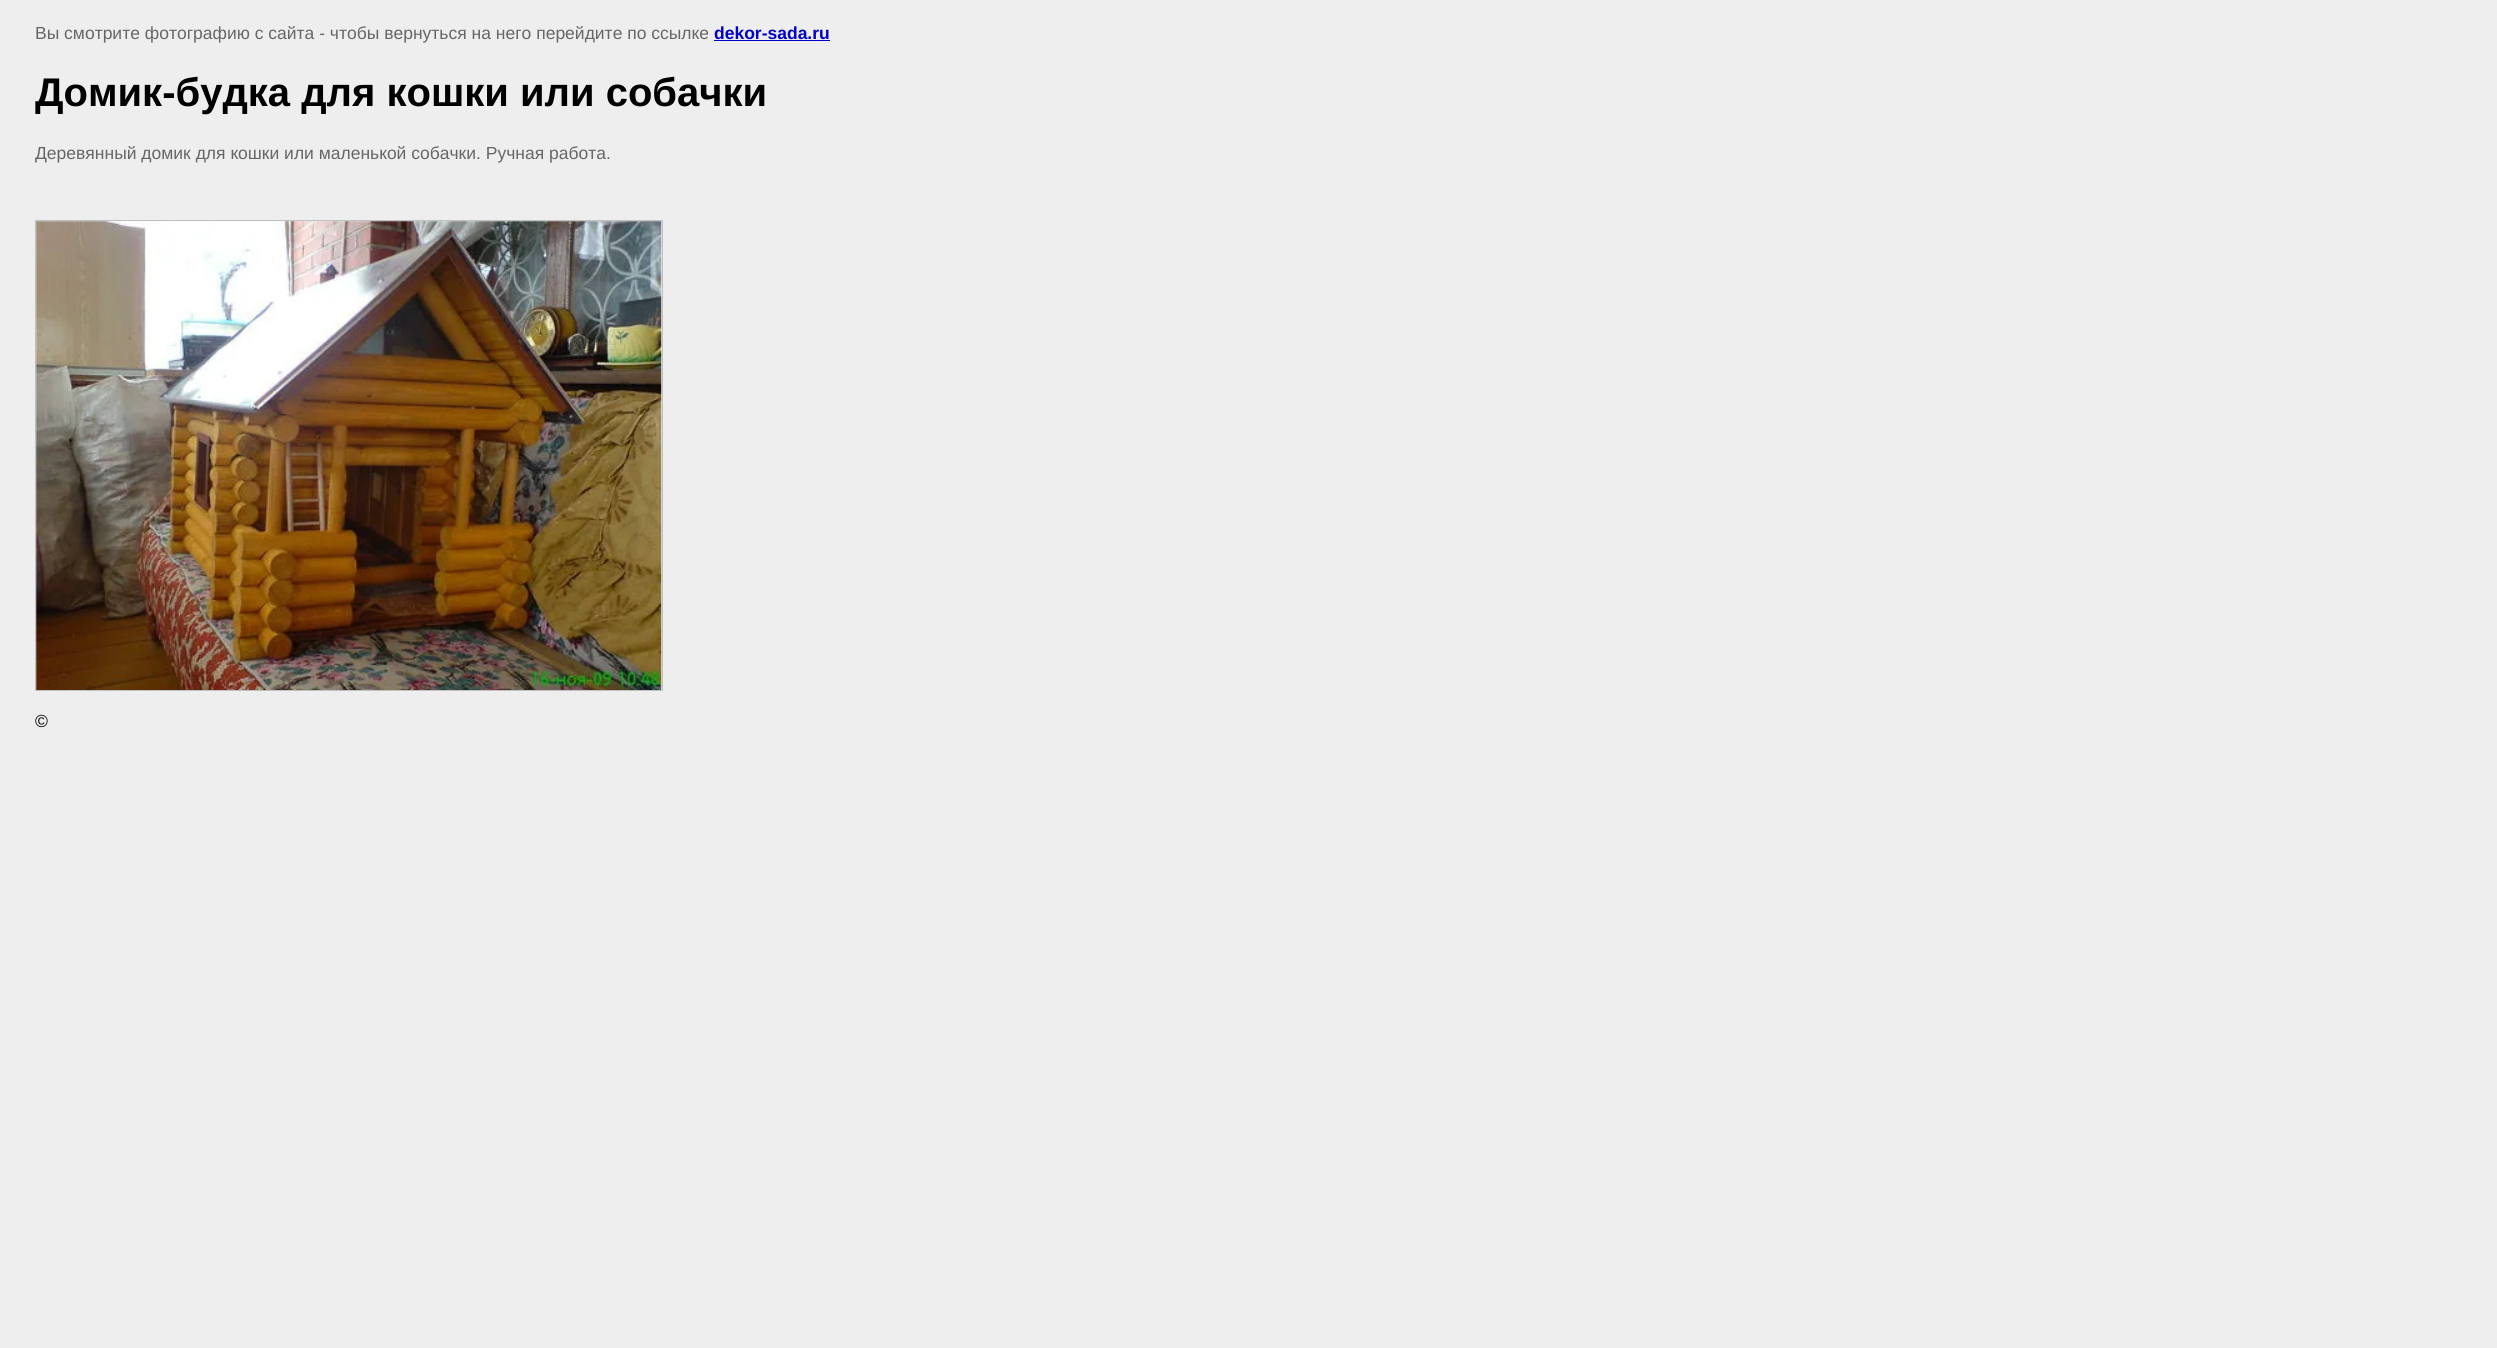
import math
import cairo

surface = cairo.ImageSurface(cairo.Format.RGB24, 2497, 1348)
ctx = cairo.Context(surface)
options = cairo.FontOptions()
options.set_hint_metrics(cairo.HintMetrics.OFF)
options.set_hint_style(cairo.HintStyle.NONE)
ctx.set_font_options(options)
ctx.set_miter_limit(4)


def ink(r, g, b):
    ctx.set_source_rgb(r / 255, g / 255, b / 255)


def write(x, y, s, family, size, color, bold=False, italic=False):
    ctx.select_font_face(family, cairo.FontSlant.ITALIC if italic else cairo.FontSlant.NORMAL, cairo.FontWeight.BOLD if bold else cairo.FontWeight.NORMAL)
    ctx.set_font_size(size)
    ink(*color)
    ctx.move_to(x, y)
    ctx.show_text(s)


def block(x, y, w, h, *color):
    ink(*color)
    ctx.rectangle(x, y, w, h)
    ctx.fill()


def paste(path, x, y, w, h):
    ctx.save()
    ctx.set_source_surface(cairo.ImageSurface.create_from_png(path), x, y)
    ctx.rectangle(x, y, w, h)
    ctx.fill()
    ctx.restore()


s1 = dict(family="Liberation Sans", size=17.5, color=(102, 102, 102))
s2 = dict(family="Liberation Sans", size=17.5, color=(0, 0, 204), bold=True)
s3 = dict(family="Liberation Sans", size=40, color=(0, 0, 0), bold=True)
s4 = dict(family="Liberation Sans", size=17.5, color=(0, 0, 0))

ink(238, 238, 238)
ctx.paint()
write(35, 39, "Вы смотрите фотографию с сайта - чтобы вернуться на него перейдите по ссылке", **s1)
write(714, 39, "dekor-sada.ru", **s2)
block(714, 40, 116, 1, 0, 0, 204)
write(35, 106, "Домик-будка для кошки или собачки", **s3)
write(35, 159, "Деревянный домик для кошки или маленькой собачки. Ручная работа.", **s1)
ctx.rectangle(35.5, 220.5, 627, 470)
ink(192, 192, 192)
ctx.set_line_width(1)
ctx.stroke()
paste("pic1.png", 36, 221, 626, 469)
write(35, 727, "©", **s4)
surface.write_to_png("screenshot.png")
